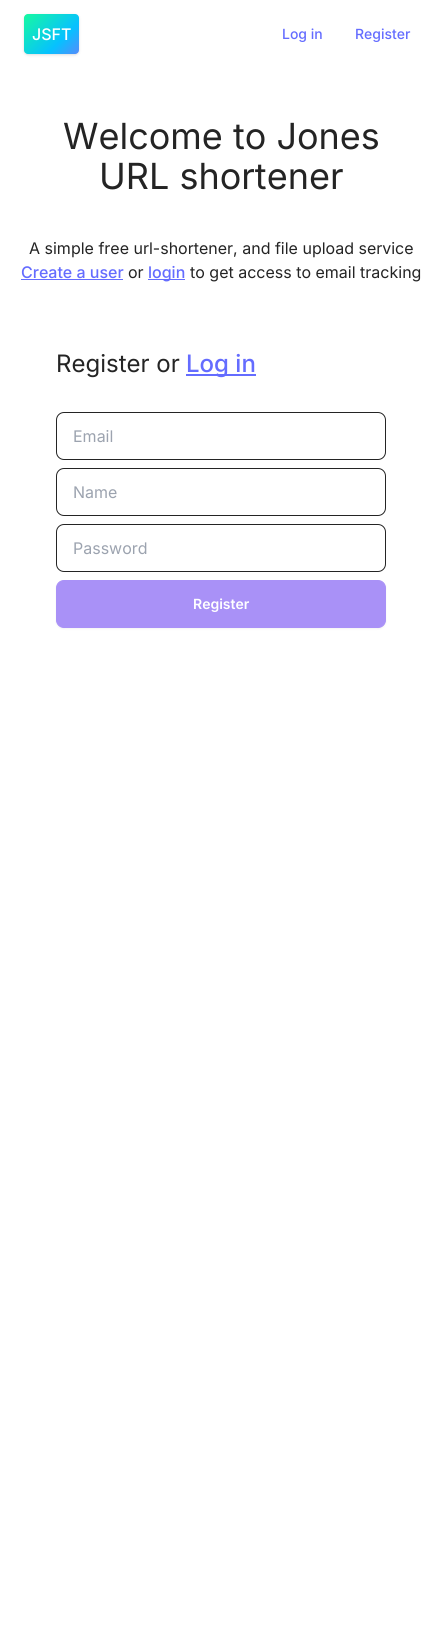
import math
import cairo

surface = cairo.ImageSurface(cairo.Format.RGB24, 442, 1651)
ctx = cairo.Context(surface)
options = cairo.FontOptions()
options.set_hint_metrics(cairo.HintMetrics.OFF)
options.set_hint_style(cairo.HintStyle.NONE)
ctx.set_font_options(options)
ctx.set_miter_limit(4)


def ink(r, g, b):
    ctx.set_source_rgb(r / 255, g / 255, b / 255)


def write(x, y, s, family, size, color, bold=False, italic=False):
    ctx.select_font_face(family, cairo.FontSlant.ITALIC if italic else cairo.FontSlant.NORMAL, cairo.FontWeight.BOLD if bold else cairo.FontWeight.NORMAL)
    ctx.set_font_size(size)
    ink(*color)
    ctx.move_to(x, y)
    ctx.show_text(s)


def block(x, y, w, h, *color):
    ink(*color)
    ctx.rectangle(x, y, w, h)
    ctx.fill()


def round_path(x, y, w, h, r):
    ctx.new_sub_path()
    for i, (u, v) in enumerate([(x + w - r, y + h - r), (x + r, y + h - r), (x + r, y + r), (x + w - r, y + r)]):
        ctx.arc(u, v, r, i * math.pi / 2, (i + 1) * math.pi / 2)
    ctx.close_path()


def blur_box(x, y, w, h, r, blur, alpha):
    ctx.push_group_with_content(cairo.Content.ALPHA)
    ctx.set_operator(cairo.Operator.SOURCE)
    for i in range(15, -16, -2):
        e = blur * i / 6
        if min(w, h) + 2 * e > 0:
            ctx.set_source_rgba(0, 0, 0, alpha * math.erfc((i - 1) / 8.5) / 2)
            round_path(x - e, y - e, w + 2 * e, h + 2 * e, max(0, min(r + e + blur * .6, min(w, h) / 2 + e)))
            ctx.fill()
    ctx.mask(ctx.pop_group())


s1 = dict(family="Inter Medium", size=16, color=(255, 255, 255))
s2 = dict(family="Inter Medium", size=14, color=(100, 108, 255))
s3 = dict(family="Inter", size=36, color=(36, 36, 36))
s4 = dict(family="Inter", size=16, color=(36, 36, 36))
s5 = dict(family="Inter Medium", size=16, color=(100, 108, 255))
s6 = dict(family="Inter", size=24, color=(36, 36, 36))
s7 = dict(family="Inter Medium", size=24, color=(100, 108, 255))
s8 = dict(family="Inter", size=16, color=(156, 163, 175))
s9 = dict(family="Inter SemiBold", size=14, color=(255, 255, 255))

ink(255, 255, 255)
ctx.paint()
ink(0, 0, 0)
blur_box(25, 16, 53, 38, 3, 1, 0.1)
blur_box(24, 15, 55, 40, 4, 1.5, 0.1)
gradient = cairo.LinearGradient(127, 102, 32, 6.5)
gradient.add_color_stop_rgba(0, 0.388, 0.4, 0.945, 1)
gradient.add_color_stop_rgba(0.33, 0.659, 0.333, 0.969, 1)
gradient.add_color_stop_rgba(0.67, 0.024, 0.757, 1, 1)
gradient.add_color_stop_rgba(1, 0.086, 0.976, 0.635, 1)
ctx.set_source(gradient)
round_path(24, 14, 55, 40, 4)
ctx.fill()
write(32, 40, "JSFT", **s1)
write(282, 39, "Log in", **s2)
write(355, 39, "Register", **s2)
write(63, 149, "Welcome to Jones", **s3)
write(99, 189, "URL shortener", **s3)
write(29, 254, "A simple free url-shortener, and file upload service", **s4)
write(21, 278, "Create a user", **s5)
block(21, 279, 102, 1, 100, 108, 255)
write(128, 278, "or", **s4)
block(148, 279, 37, 1, 100, 108, 255)
write(148, 278, "login", **s5)
write(190, 278, "to get access to email tracking", **s4)
write(56, 372, "Register or", **s6)
block(186, 374, 70, 2, 100, 108, 255)
write(186, 372, "Log in", **s7)
round_path(56.5, 412.5, 329, 47, 7.5)
ink(36, 36, 36)
ctx.set_line_width(1)
ctx.stroke()
write(73, 442, "Email", **s8)
round_path(56.5, 468.5, 329, 47, 7.5)
ink(36, 36, 36)
ctx.stroke()
write(73, 498, "Name", **s8)
round_path(56.5, 524.5, 329, 47, 7.5)
ink(36, 36, 36)
ctx.stroke()
write(73, 554, "Password", **s8)
ink(0, 0, 0)
blur_box(56, 581, 330, 48, 8, 1, 0.05)
ink(169, 145, 247)
round_path(56.5, 580.5, 329, 47, 7.5)
ctx.fill_preserve()
ctx.stroke()
write(193, 609, "Register", **s9)
surface.write_to_png("screenshot.png")
